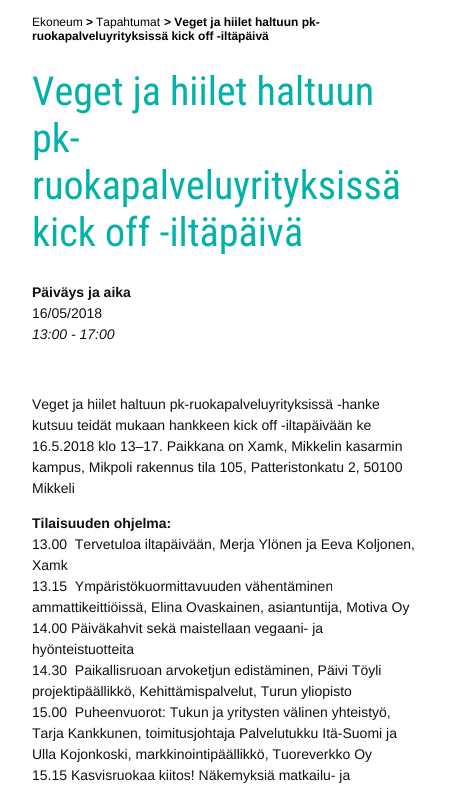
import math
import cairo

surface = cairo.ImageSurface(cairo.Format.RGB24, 450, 793)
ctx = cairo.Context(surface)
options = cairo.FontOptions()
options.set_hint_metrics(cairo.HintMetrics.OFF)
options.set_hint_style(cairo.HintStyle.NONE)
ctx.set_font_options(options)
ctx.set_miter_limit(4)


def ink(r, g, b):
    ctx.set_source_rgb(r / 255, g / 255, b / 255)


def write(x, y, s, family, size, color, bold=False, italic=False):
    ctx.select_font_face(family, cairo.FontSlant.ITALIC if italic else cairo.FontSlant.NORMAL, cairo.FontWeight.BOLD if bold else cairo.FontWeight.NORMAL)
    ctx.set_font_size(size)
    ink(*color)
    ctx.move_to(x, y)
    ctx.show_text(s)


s1 = dict(family="Liberation Sans", size=12, color=(0, 0, 0))
s2 = dict(family="Liberation Sans", size=12, color=(0, 0, 0), bold=True)
s3 = dict(family="Roboto Condensed", size=40, color=(4, 177, 168))
s4 = dict(family="Liberation Sans", size=14, color=(17, 17, 17), bold=True)
s5 = dict(family="Liberation Sans", size=14, color=(17, 17, 17))
s6 = dict(family="Liberation Sans", size=14, color=(17, 17, 17), italic=True)

ink(255, 255, 255)
ctx.paint()
write(32, 26, "Ekoneum", **s1)
write(86, 26, ">", **s2)
write(96, 26, "Tapahtumat", **s1)
write(164, 26, "> Veget ja hiilet haltuun pk-", **s2)
write(32, 40, "ruokapalveluyrityksissä kick off -iltäpäivä", **s2)
write(32, 105, "Veget ja hiilet haltuun", **s3)
write(32, 152, "pk-", **s3)
write(32, 199, "ruokapalveluyrityksissä", **s3)
write(32, 246, "kick off -iltäpäivä", **s3)
write(32, 297, "Päiväys ja aika", **s4)
write(32, 318, "16/05/2018", **s5)
write(32, 339, "13:00 - 17:00", **s6)
write(32, 409, "Veget ja hiilet haltuun pk-ruokapalveluyrityksissä -hanke", **s5)
write(32, 430, "kutsuu teidät mukaan hankkeen kick off -iltapäivään ke", **s5)
write(32, 451, "16.5.2018 klo 13–17. Paikkana on Xamk, Mikkelin kasarmin", **s5)
write(32, 472, "kampus, Mikpoli rakennus tila 105, Patteristonkatu 2, 50100", **s5)
write(32, 493, "Mikkeli", **s5)
write(32, 528, "Tilaisuuden ohjelma:", **s4)
write(32, 549, "13.00  Tervetuloa iltapäivään, Merja Ylönen ja Eeva Koljonen,", **s5)
write(32, 570, "Xamk", **s5)
write(32, 591, "13.15  Ympäristökuormittavuuden vähentäminen", **s5)
write(32, 612, "ammattikeittiöissä, Elina Ovaskainen, asiantuntija, Motiva Oy", **s5)
write(32, 633, "14.00 Päiväkahvit sekä maistellaan vegaani- ja", **s5)
write(32, 654, "hyönteistuotteita", **s5)
write(32, 675, "14.30  Paikallisruoan arvoketjun edistäminen, Päivi Töyli", **s5)
write(32, 696, "projektipäällikkö, Kehittämispalvelut, Turun yliopisto", **s5)
write(32, 717, "15.00  Puheenvuorot: Tukun ja yritysten välinen yhteistyö,", **s5)
write(32, 738, "Tarja Kankkunen, toimitusjohtaja Palvelutukku Itä-Suomi ja", **s5)
write(32, 759, "Ulla Kojonkoski, markkinointipäällikkö, Tuoreverkko Oy", **s5)
write(32, 780, "15.15 Kasvisruokaa kiitos! Näkemyksiä matkailu- ja", **s5)
surface.write_to_png("screenshot.png")
